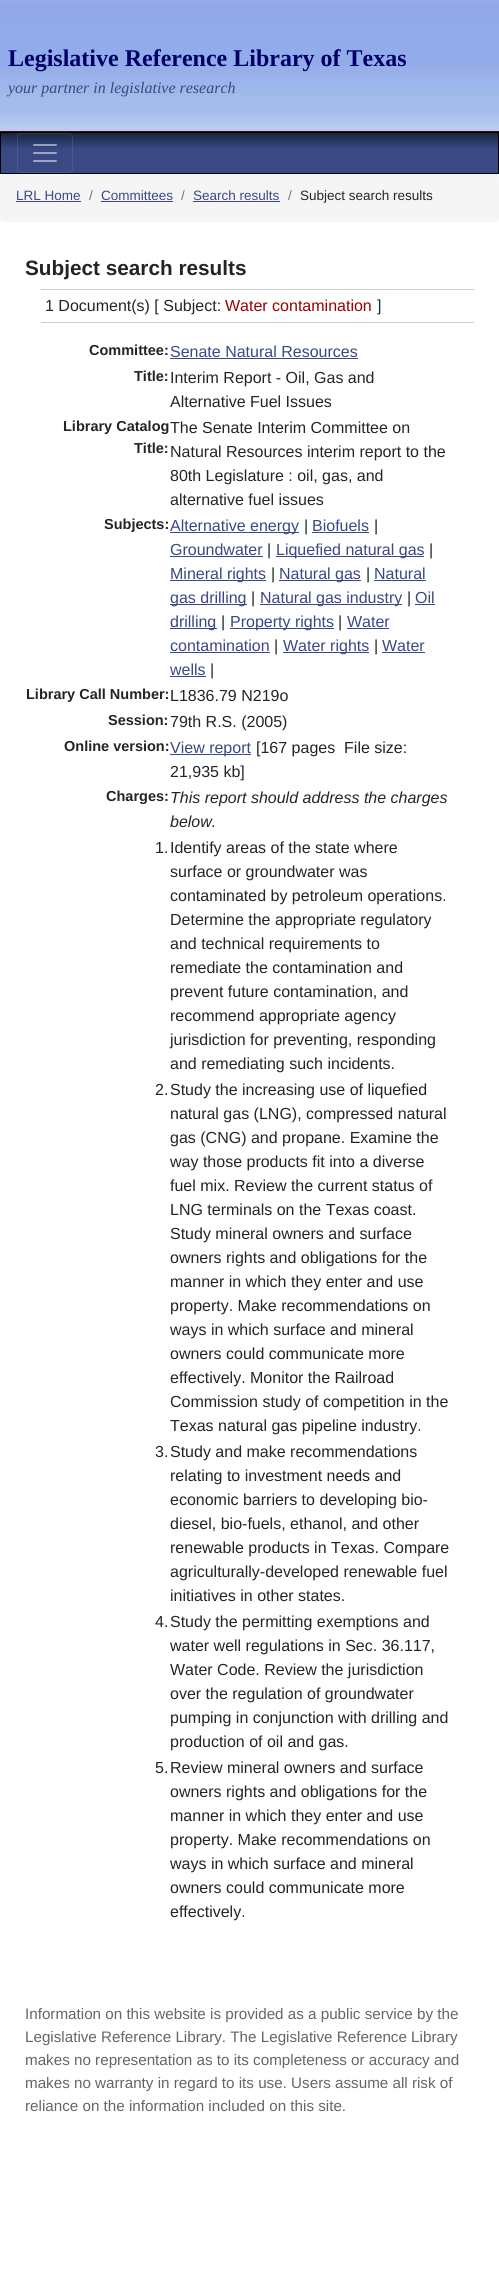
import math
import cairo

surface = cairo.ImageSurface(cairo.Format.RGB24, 499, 2293)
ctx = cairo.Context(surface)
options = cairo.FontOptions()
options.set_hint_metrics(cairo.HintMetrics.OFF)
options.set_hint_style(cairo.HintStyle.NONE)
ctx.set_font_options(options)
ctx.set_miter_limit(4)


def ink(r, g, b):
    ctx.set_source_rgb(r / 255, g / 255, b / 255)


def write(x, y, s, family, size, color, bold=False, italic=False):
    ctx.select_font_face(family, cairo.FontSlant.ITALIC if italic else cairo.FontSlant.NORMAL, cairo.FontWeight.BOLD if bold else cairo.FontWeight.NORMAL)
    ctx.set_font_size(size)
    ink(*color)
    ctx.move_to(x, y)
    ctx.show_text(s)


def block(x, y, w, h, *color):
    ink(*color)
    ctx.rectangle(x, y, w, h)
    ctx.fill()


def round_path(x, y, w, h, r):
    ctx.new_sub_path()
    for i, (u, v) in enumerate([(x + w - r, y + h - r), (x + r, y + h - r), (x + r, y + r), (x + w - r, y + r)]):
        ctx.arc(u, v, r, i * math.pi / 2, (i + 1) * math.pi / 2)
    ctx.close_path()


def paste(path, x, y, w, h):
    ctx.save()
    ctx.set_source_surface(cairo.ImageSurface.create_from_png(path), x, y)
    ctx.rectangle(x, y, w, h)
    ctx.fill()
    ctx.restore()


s1 = dict(family="Liberation Serif", size=24, color=(0, 0, 102), bold=True)
s2 = dict(family="Liberation Serif", size=16, color=(58, 72, 131), italic=True)
s3 = dict(family="Liberation Sans", size=13.5, color=(58, 72, 131))
s4 = dict(family="Liberation Sans", size=13.5, color=(108, 117, 125))
s5 = dict(family="Liberation Sans", size=13.5, color=(33, 37, 41))
s6 = dict(family="Liberation Sans", size=20.75, color=(33, 37, 41), bold=True)
s7 = dict(family="Liberation Sans", size=16, color=(33, 37, 41))
s8 = dict(family="Liberation Sans", size=16, color=(153, 0, 0))
s9 = dict(family="Liberation Sans", size=14.5, color=(33, 37, 41), bold=True)
s10 = dict(family="Liberation Sans", size=16, color=(58, 72, 131))
s11 = dict(family="Liberation Sans", size=16, color=(33, 37, 41), italic=True)
s12 = dict(family="Liberation Sans", size=15.2, color=(102, 102, 102))

ink(255, 255, 255)
ctx.paint()
paste("pic1.png", 0, 0, 499, 131)
block(0, 131, 499, 1, 102, 0, 0)
write(8, 66, "Legislative Reference Library of Texas", **s1)
write(8, 93, "your partner in legislative research", **s2)
gradient = cairo.LinearGradient(250, 133, 250, 173)
gradient.add_color_stop_rgba(0, 0.086, 0.153, 0.259, 1)
gradient.add_color_stop_rgba(0.4, 0.227, 0.282, 0.514, 1)
ctx.set_source(gradient)
ctx.rectangle(1, 133, 497, 40)
ctx.fill()
ctx.rectangle(0.5, 132.5, 498, 41)
ink(0, 0, 0)
ctx.set_line_width(1)
ctx.stroke()
round_path(17.5, 133.5, 55, 39, 3.5)
ctx.set_source_rgba(1, 1, 1, 0.1)
ctx.stroke()
paste("pic2.png", 33, 144, 24, 18)
ink(245, 245, 245)
round_path(0, 174, 499, 48, 4)
ctx.fill()
write(16, 200, "LRL Home", **s3)
block(16, 201, 65, 1, 58, 72, 131)
write(89, 200, "/", **s4)
write(101, 200, "Committees", **s3)
block(101, 201, 72, 1, 58, 72, 131)
write(181, 200, "/", **s4)
write(193, 200, "Search results", **s3)
block(193, 201, 87, 1, 58, 72, 131)
write(288, 200, "/", **s4)
write(300, 200, "Subject search results", **s5)
write(25, 275, "Subject search results", **s6)
block(41, 289, 433, 1, 204, 204, 204)
block(41, 322, 433, 1, 204, 204, 204)
write(45, 311, "1 Document(s) [ Subject:", **s7)
write(225, 311, "Water contamination", **s8)
write(377, 311, "]", **s7)
write(89, 355, "Committee:", **s9)
write(170, 357, "Senate Natural Resources", **s10)
block(170, 358, 188, 1, 58, 72, 131)
write(134, 381, "Title:", **s9)
write(170, 383, "Interim Report - Oil, Gas and", **s7)
write(170, 407, "Alternative Fuel Issues", **s7)
write(63, 431, "Library Catalog", **s9)
write(134, 453, "Title:", **s9)
write(170, 433, "The Senate Interim Committee on", **s7)
write(170, 457, "Natural Resources interim report to the", **s7)
write(170, 481, "80th Legislature : oil, gas, and", **s7)
write(170, 505, "alternative fuel issues", **s7)
write(104, 529, "Subjects:", **s9)
block(170, 532, 129, 1, 58, 72, 131)
write(170, 531, "Alternative energy", **s10)
write(304, 531, "|", **s7)
write(312, 531, "Biofuels", **s10)
block(312, 532, 57, 1, 58, 72, 131)
write(374, 531, "|", **s7)
write(170, 555, "Groundwater", **s10)
block(170, 556, 93, 1, 58, 72, 131)
write(267, 555, "|", **s7)
block(276, 556, 148, 1, 58, 72, 131)
write(276, 555, "Liquefied natural gas", **s10)
write(429, 555, "|", **s7)
block(170, 580, 96, 1, 58, 72, 131)
write(170, 579, "Mineral rights", **s10)
write(271, 579, "|", **s7)
block(279, 580, 82, 1, 58, 72, 131)
write(279, 579, "Natural gas", **s10)
write(366, 579, "|", **s7)
write(374, 579, "Natural", **s10)
block(374, 580, 52, 1, 58, 72, 131)
block(170, 604, 77, 1, 58, 72, 131)
write(170, 603, "gas drilling", **s10)
write(251, 603, "|", **s7)
block(260, 604, 142, 1, 58, 72, 131)
write(260, 603, "Natural gas industry", **s10)
write(407, 603, "|", **s7)
write(415, 603, "Oil", **s10)
block(415, 604, 20, 1, 58, 72, 131)
block(170, 628, 47, 1, 58, 72, 131)
write(170, 627, "drilling", **s10)
write(221, 627, "|", **s7)
block(230, 628, 104, 1, 58, 72, 131)
write(230, 627, "Property rights", **s10)
write(338, 627, "|", **s7)
write(347, 627, "Water", **s10)
block(347, 628, 42, 1, 58, 72, 131)
write(170, 651, "contamination", **s10)
block(170, 652, 100, 1, 58, 72, 131)
write(274, 651, "|", **s7)
block(283, 652, 86, 1, 58, 72, 131)
write(283, 651, "Water rights", **s10)
write(374, 651, "|", **s7)
write(382, 651, "Water", **s10)
block(382, 652, 43, 1, 58, 72, 131)
write(170, 675, "wells", **s10)
block(170, 676, 36, 1, 58, 72, 131)
write(210, 675, "|", **s7)
write(26, 699, "Library Call Number:", **s9)
write(170, 701, "L1836.79 N219o", **s7)
write(108, 725, "Session:", **s9)
write(170, 727, "79th R.S. (2005)", **s7)
write(64, 751, "Online version:", **s9)
block(170, 754, 81, 1, 58, 72, 131)
write(170, 753, "View report", **s10)
write(256, 753, "[167 pages  File size:", **s7)
write(170, 777, "21,935 kb]", **s7)
write(106, 801, "Charges:", **s9)
write(170, 803, "This report should address the charges", **s11)
write(170, 827, "below.", **s11)
write(155, 853, "1.", **s7)
write(170, 853, "Identify areas of the state where", **s7)
write(170, 877, "surface or groundwater was", **s7)
write(170, 901, "contaminated by petroleum operations.", **s7)
write(170, 925, "Determine the appropriate regulatory", **s7)
write(170, 949, "and technical requirements to", **s7)
write(170, 973, "remediate the contamination and", **s7)
write(170, 997, "prevent future contamination, and", **s7)
write(170, 1021, "recommend appropriate agency", **s7)
write(170, 1045, "jurisdiction for preventing, responding", **s7)
write(170, 1069, "and remediating such incidents.", **s7)
write(155, 1095, "2.", **s7)
write(170, 1095, "Study the increasing use of liquefied", **s7)
write(170, 1119, "natural gas (LNG), compressed natural", **s7)
write(170, 1143, "gas (CNG) and propane. Examine the", **s7)
write(170, 1167, "way those products fit into a diverse", **s7)
write(170, 1191, "fuel mix. Review the current status of", **s7)
write(170, 1215, "LNG terminals on the Texas coast.", **s7)
write(170, 1239, "Study mineral owners and surface", **s7)
write(170, 1263, "owners rights and obligations for the", **s7)
write(170, 1287, "manner in which they enter and use", **s7)
write(170, 1311, "property. Make recommendations on", **s7)
write(170, 1335, "ways in which surface and mineral", **s7)
write(170, 1359, "owners could communicate more", **s7)
write(170, 1383, "effectively. Monitor the Railroad", **s7)
write(170, 1407, "Commission study of competition in the", **s7)
write(170, 1431, "Texas natural gas pipeline industry.", **s7)
write(155, 1457, "3.", **s7)
write(170, 1457, "Study and make recommendations", **s7)
write(170, 1481, "relating to investment needs and", **s7)
write(170, 1505, "economic barriers to developing bio-", **s7)
write(170, 1529, "diesel, bio-fuels, ethanol, and other", **s7)
write(170, 1553, "renewable products in Texas. Compare", **s7)
write(170, 1577, "agriculturally-developed renewable fuel", **s7)
write(170, 1601, "initiatives in other states.", **s7)
write(155, 1627, "4.", **s7)
write(170, 1627, "Study the permitting exemptions and", **s7)
write(170, 1651, "water well regulations in Sec. 36.117,", **s7)
write(170, 1675, "Water Code. Review the jurisdiction", **s7)
write(170, 1699, "over the regulation of groundwater", **s7)
write(170, 1723, "pumping in conjunction with drilling and", **s7)
write(170, 1747, "production of oil and gas.", **s7)
write(155, 1773, "5.", **s7)
write(170, 1773, "Review mineral owners and surface", **s7)
write(170, 1797, "owners rights and obligations for the", **s7)
write(170, 1821, "manner in which they enter and use", **s7)
write(170, 1845, "property. Make recommendations on", **s7)
write(170, 1869, "ways in which surface and mineral", **s7)
write(170, 1893, "owners could communicate more", **s7)
write(170, 1917, "effectively.", **s7)
write(25, 2019, "Information on this website is provided as a public service by the", **s12)
write(25, 2042, "Legislative Reference Library. The Legislative Reference Library", **s12)
write(25, 2065, "makes no representation as to its completeness or accuracy and", **s12)
write(25, 2088, "makes no warranty in regard to its use. Users assume all risk of", **s12)
write(25, 2111, "reliance on the information included on this site.", **s12)
surface.write_to_png("screenshot.png")
